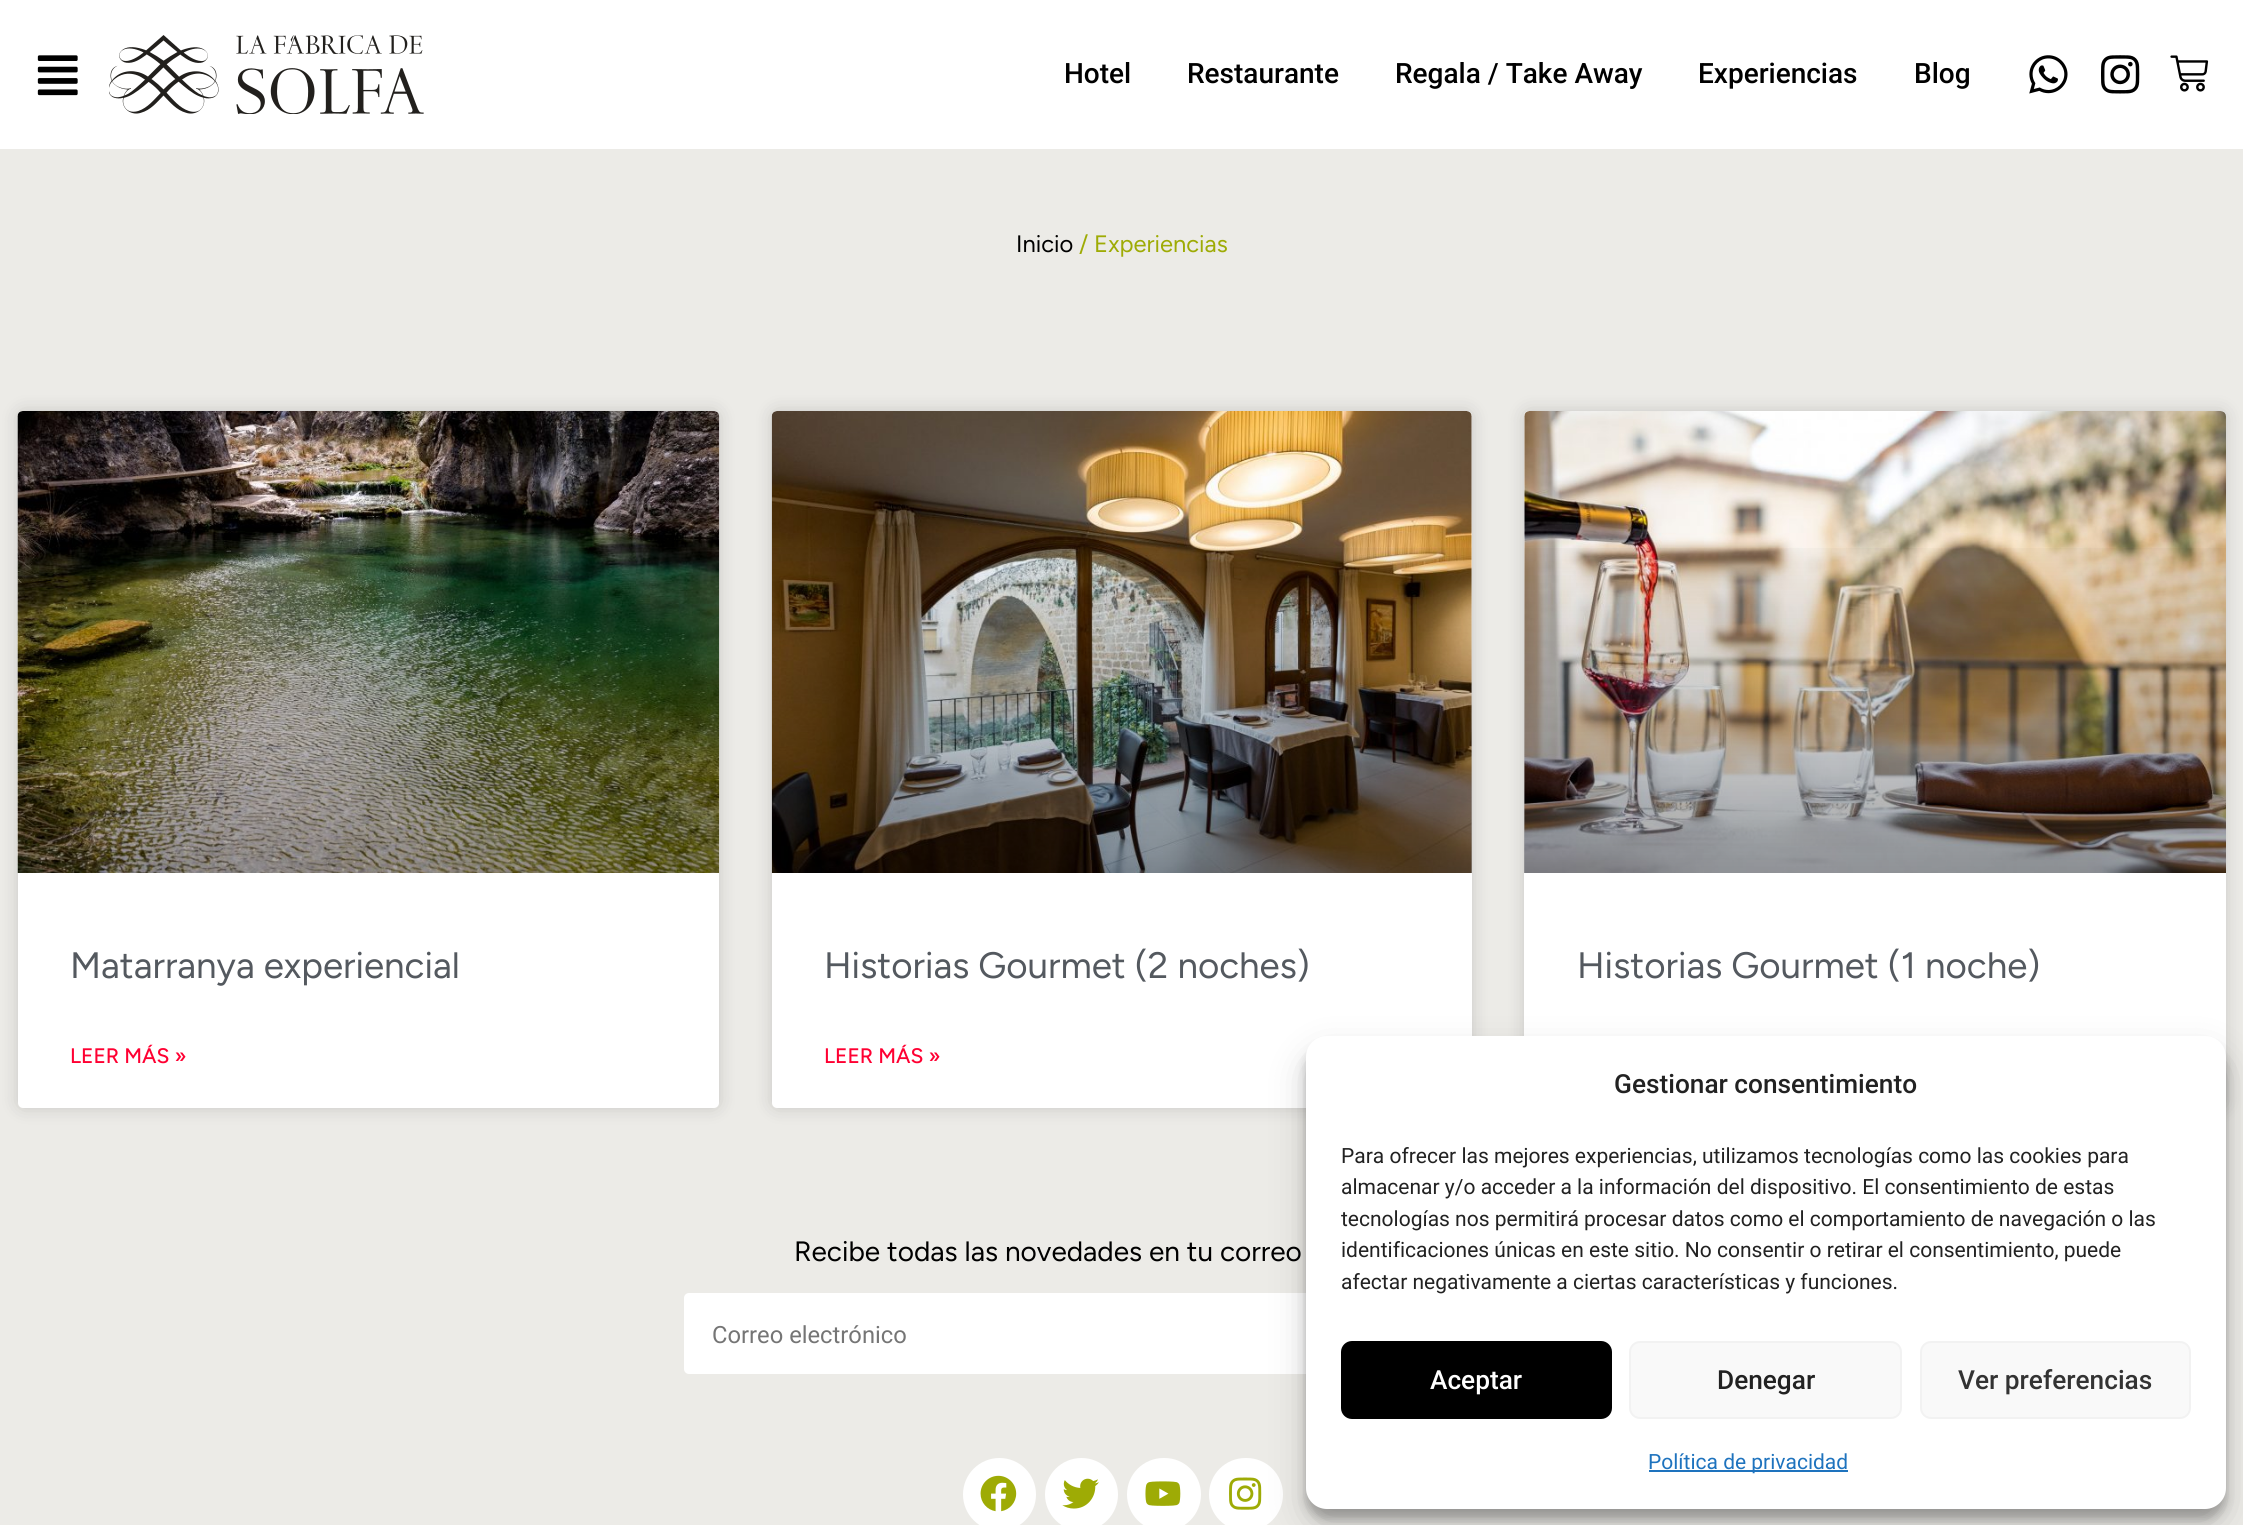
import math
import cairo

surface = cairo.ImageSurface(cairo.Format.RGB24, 2243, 1525)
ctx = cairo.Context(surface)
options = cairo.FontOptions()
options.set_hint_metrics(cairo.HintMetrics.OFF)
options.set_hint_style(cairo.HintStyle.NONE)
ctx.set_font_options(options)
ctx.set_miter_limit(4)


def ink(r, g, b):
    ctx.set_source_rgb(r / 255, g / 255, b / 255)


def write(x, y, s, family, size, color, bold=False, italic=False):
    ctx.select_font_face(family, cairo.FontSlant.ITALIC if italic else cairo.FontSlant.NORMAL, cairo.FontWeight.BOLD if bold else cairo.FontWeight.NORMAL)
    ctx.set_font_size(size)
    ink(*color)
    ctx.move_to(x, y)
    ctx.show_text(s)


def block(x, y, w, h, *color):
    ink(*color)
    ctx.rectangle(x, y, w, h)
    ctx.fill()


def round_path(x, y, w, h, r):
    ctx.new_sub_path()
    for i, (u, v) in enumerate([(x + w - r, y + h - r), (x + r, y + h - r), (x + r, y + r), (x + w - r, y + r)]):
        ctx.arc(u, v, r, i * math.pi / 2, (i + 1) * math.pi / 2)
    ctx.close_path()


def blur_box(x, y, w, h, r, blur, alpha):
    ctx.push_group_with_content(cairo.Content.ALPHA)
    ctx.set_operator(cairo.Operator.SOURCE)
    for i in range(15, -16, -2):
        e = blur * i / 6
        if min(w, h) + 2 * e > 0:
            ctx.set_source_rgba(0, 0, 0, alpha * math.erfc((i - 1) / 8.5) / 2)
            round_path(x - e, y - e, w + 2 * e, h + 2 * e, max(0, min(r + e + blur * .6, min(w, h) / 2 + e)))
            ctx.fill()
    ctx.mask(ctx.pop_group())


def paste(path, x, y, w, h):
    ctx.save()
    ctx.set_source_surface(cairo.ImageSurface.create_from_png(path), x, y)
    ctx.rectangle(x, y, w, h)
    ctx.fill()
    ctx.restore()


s1 = dict(family="Roboto Medium", size=28, color=(0, 0, 0))
s2 = dict(family="Figtree", size=23.75, color=(0, 0, 0))
s3 = dict(family="Figtree", size=23.75, color=(158, 171, 5))
s4 = dict(family="Figtree", size=36.75, color=(84, 89, 95))
s5 = dict(family="Figtree Medium", size=21, color=(255, 0, 50))
s6 = dict(family="Figtree", size=28, color=(0, 0, 0))
s7 = dict(family="Roboto", size=23.75, color=(117, 117, 117))
s8 = dict(family="Roboto Medium", size=26.25, color=(34, 34, 34))
s9 = dict(family="Roboto", size=21, color=(34, 34, 34))
s10 = dict(family="Roboto Medium", size=26.25, color=(255, 255, 255))
s11 = dict(family="Roboto Medium", size=26.25, color=(51, 51, 51))
s12 = dict(family="Roboto", size=21, color=(30, 115, 190))

ink(236, 235, 231)
ctx.paint()
block(0, 0, 2243, 149, 255, 255, 255)
paste("pic1.png", 37, 55, 41, 41)
paste("pic2.png", 109, 35, 315, 79)
write(1064, 83, "Hotel", **s1)
write(1187, 83, "Restaurante", **s1)
write(1395, 83, "Regala / Take Away", **s1)
write(1698, 83, "Experiencias", **s1)
write(1914, 83, "Blog", **s1)
paste("pic3.png", 2029, 55, 39, 39)
paste("pic4.png", 2101, 55, 39, 39)
paste("pic5.png", 2170, 55, 39, 37)
write(1016, 252, "Inicio", **s2)
write(1079, 252, "/ Experiencias", **s3)
ink(0, 0, 0)
blur_box(18, 411, 701, 697, 5, 9, 0.15)
ink(255, 255, 255)
round_path(18, 411, 701, 697, 5)
ctx.fill()
paste("pic6.png", 17, 411, 703, 462)
gradient = cairo.LinearGradient(368, 873, 368, 411)
gradient.add_color_stop_rgba(0, 0, 0, 0, 0.35)
gradient.add_color_stop_rgba(0.75, 0, 0, 0, 0)
ctx.set_source(gradient)
ctx.rectangle(18, 548, 701, 325)
ctx.fill()
write(70, 978, "Matarranya experiencial", **s4)
write(70, 1063, "LEER MÁS »", **s5)
ink(0, 0, 0)
blur_box(772, 411, 700, 697, 5, 9, 0.15)
ink(255, 255, 255)
round_path(772, 411, 700, 697, 5)
ctx.fill()
paste("pic7.png", 771, 411, 701, 462)
gradient = cairo.LinearGradient(1122, 873, 1122, 411)
gradient.add_color_stop_rgba(0, 0, 0, 0, 0.35)
gradient.add_color_stop_rgba(0.75, 0, 0, 0, 0)
ctx.set_source(gradient)
ctx.rectangle(772, 548, 700, 325)
ctx.fill()
write(824, 978, "Historias Gourmet (2 noches)", **s4)
write(824, 1063, "LEER MÁS »", **s5)
ink(0, 0, 0)
blur_box(1524, 411, 702, 697, 5, 9, 0.15)
ink(255, 255, 255)
round_path(1524, 411, 702, 697, 5)
ctx.fill()
paste("pic8.png", 1524, 411, 702, 462)
gradient = cairo.LinearGradient(1875, 873, 1875, 411)
gradient.add_color_stop_rgba(0, 0, 0, 0, 0.35)
gradient.add_color_stop_rgba(0.75, 0, 0, 0, 0)
ctx.set_source(gradient)
ctx.rectangle(1524, 548, 702, 325)
ctx.fill()
write(1577, 978, "Historias Gourmet (1 noche)", **s4)
write(794, 1261, "Recibe todas las novedades en tu correo", **s6)
ink(255, 255, 255)
round_path(684, 1293, 643, 81, 5)
ctx.fill()
write(712, 1343, "Correo electrónico", **s7)
ink(255, 255, 255)
ctx.new_path()
ctx.arc(999.5, 1494.5, 36.5, 0, 2 * math.pi)
ctx.fill()
paste("pic9.png", 980, 1475, 37, 37)
ctx.arc(1081.5, 1494.5, 36.5, 0, 2 * math.pi)
ctx.fill()
paste("pic10.png", 1062, 1478, 37, 31)
round_path(1127, 1458, 74, 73, 36.5)
ctx.fill()
paste("pic11.png", 1145, 1481, 36, 25)
round_path(1209, 1458, 74, 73, 36.5)
ctx.fill()
paste("pic12.png", 1229, 1477, 33, 33)
ink(0, 0, 0)
blur_box(1306, 1047, 920, 472, 21, 5, 0.23)
blur_box(1306, 1054, 920, 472, 21, 17.5, 0.19)
ink(255, 255, 255)
round_path(1306, 1036, 920, 473, 21)
ctx.fill()
write(1614, 1093, "Gestionar consentimiento", **s8)
write(1341, 1163, "Para ofrecer las mejores experiencias, utilizamos tecnologías como las cookies para", **s9)
write(1341, 1194, "almacenar y/o acceder a la información del dispositivo. El consentimiento de estas", **s9)
write(1341, 1226, "tecnologías nos permitirá procesar datos como el comportamiento de navegación o las", **s9)
write(1341, 1257, "identificaciones únicas en este sitio. No consentir o retirar el consentimiento, puede", **s9)
write(1341, 1289, "afectar negativamente a ciertas características y funciones.", **s9)
ink(0, 0, 0)
round_path(1342, 1342, 269, 76, 10)
ctx.fill_preserve()
ctx.stroke()
write(1430, 1389, "Aceptar", **s10)
ink(249, 249, 249)
round_path(1630, 1342, 271, 76, 10)
ctx.fill_preserve()
ink(242, 242, 242)
ctx.stroke()
write(1717, 1389, "Denegar", **s8)
ink(249, 249, 249)
round_path(1921, 1342, 269, 76, 10)
ctx.fill_preserve()
ink(242, 242, 242)
ctx.stroke()
write(1958, 1389, "Ver preferencias", **s11)
block(1649, 1470, 199, 2, 30, 115, 190)
write(1648, 1469, "Política de privacidad", **s12)
surface.write_to_png("screenshot.png")
